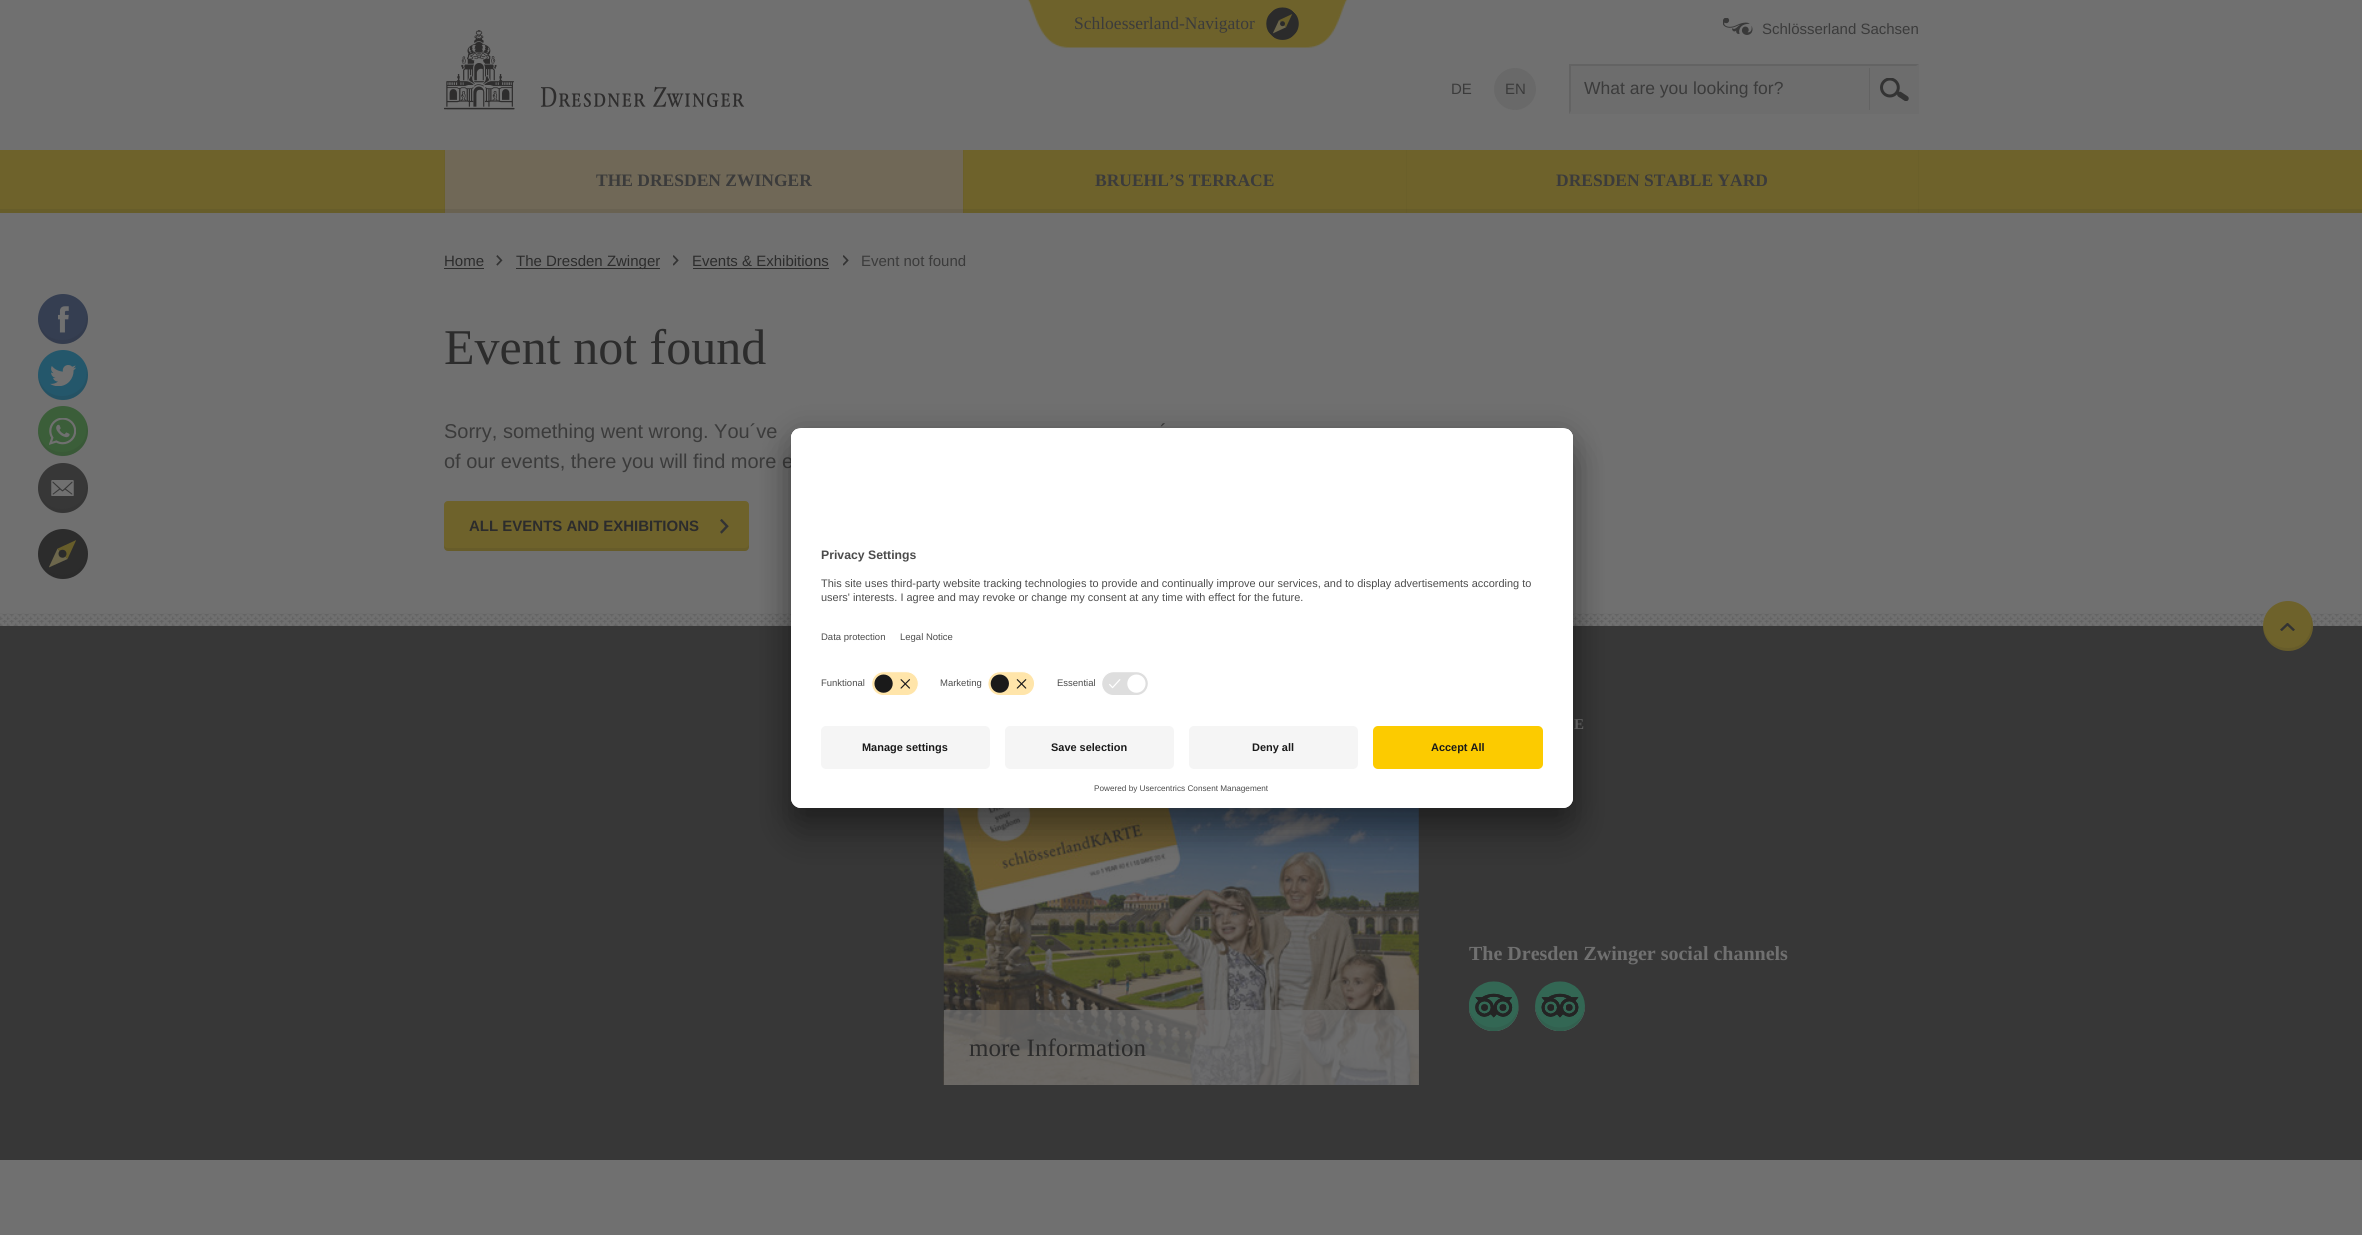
import math
import cairo

surface = cairo.ImageSurface(cairo.Format.RGB24, 2362, 1235)
ctx = cairo.Context(surface)
options = cairo.FontOptions()
options.set_hint_metrics(cairo.HintMetrics.OFF)
options.set_hint_style(cairo.HintStyle.NONE)
ctx.set_font_options(options)
ctx.set_miter_limit(4)


def ink(r, g, b):
    ctx.set_source_rgb(r / 255, g / 255, b / 255)


def write(x, y, s, family, size, color, bold=False, italic=False):
    ctx.select_font_face(family, cairo.FontSlant.ITALIC if italic else cairo.FontSlant.NORMAL, cairo.FontWeight.BOLD if bold else cairo.FontWeight.NORMAL)
    ctx.set_font_size(size)
    ink(*color)
    ctx.move_to(x, y)
    ctx.show_text(s)


def block(x, y, w, h, *color):
    ink(*color)
    ctx.rectangle(x, y, w, h)
    ctx.fill()


def round_path(x, y, w, h, r):
    ctx.new_sub_path()
    for i, (u, v) in enumerate([(x + w - r, y + h - r), (x + r, y + h - r), (x + r, y + r), (x + w - r, y + r)]):
        ctx.arc(u, v, r, i * math.pi / 2, (i + 1) * math.pi / 2)
    ctx.close_path()


def blur_box(x, y, w, h, r, blur, alpha):
    ctx.push_group_with_content(cairo.Content.ALPHA)
    ctx.set_operator(cairo.Operator.SOURCE)
    for i in range(15, -16, -2):
        e = blur * i / 6
        if min(w, h) + 2 * e > 0:
            ctx.set_source_rgba(0, 0, 0, alpha * math.erfc((i - 1) / 8.5) / 2)
            round_path(x - e, y - e, w + 2 * e, h + 2 * e, max(0, min(r + e + blur * .6, min(w, h) / 2 + e)))
            ctx.fill()
    ctx.mask(ctx.pop_group())


def paste(path, x, y, w, h):
    ctx.save()
    ctx.set_source_surface(cairo.ImageSurface.create_from_png(path), x, y)
    ctx.rectangle(x, y, w, h)
    ctx.fill()
    ctx.restore()


s1 = dict(family="Liberation Serif", size=17.5, color=(59, 59, 59))
s2 = dict(family="Liberation Sans", size=15, color=(59, 59, 59))
s3 = dict(family="Liberation Sans", size=17.5, color=(59, 59, 59))
s4 = dict(family="Liberation Serif", size=17.5, color=(59, 59, 59), bold=True)
s5 = dict(family="Liberation Sans", size=15, color=(44, 44, 44))
s6 = dict(family="Liberation Serif", size=50, color=(44, 44, 44))
s7 = dict(family="Liberation Sans", size=20, color=(59, 59, 59))
s8 = dict(family="Liberation Sans", size=15, color=(44, 44, 44), bold=True)
s9 = dict(family="Liberation Serif", size=15, color=(112, 112, 112), bold=True)
s10 = dict(family="Liberation Serif", size=20, color=(112, 112, 112), bold=True)
s11 = dict(family="Liberation Serif", size=25, color=(44, 44, 44))
s12 = dict(family="Liberation Sans", size=12.25, color=(76, 76, 76), bold=True)
s13 = dict(family="Liberation Sans", size=10.95, color=(76, 76, 76))
s14 = dict(family="Liberation Sans", size=9.5, color=(76, 76, 76))
s15 = dict(family="Liberation Sans", size=10.95, color=(26, 26, 26), bold=True)
s16 = dict(family="Liberation Sans", size=8.2, color=(76, 76, 76))

ink(112, 112, 112)
ctx.paint()
paste("pic1.png", 1027, 0, 321, 48)
write(1074, 29, "Schloesserland-Navigator", **s1)
paste("pic2.png", 1266, 7, 33, 33)
paste("pic3.png", 444, 30, 301, 80)
paste("pic4.png", 1723, 18, 30, 17)
write(1762, 34, "Schlösserland Sachsen", **s2)
write(1451, 94, "DE", **s2)
ink(105, 105, 105)
ctx.new_path()
ctx.arc(1515, 89, 21, 0, 2 * math.pi)
ctx.fill()
write(1505, 94, "EN", **s2)
block(1569, 64, 350, 50, 109, 109, 109)
ink(99, 99, 99)
ctx.new_path()
ctx.move_to(1569, 64)
ctx.line_to(1919, 64)
ctx.line_to(1916, 66)
ctx.line_to(1571, 66)
ctx.close_path()
ctx.fill()
ctx.set_source_rgba(0.141, 0.141, 0.141, 0.13)
ctx.new_path()
ctx.move_to(1569, 114)
ctx.line_to(1569, 64)
ctx.line_to(1571, 66)
ctx.line_to(1571, 111)
ctx.close_path()
ctx.fill()
write(1584, 94, "What are you looking for?", **s3)
paste("pic5.png", 1880, 78, 29, 23)
block(1869, 68, 1, 42, 99, 99, 99)
block(0, 150, 2362, 59, 110, 98, 43)
block(1406, 150, 1, 63, 107, 96, 42)
block(1918, 150, 1, 63, 107, 96, 42)
block(963, 150, 1, 63, 107, 96, 42)
block(444, 150, 1, 63, 107, 96, 42)
block(0, 209, 2362, 4, 103, 93, 42)
block(1406, 209, 1, 4, 101, 90, 42)
block(1918, 209, 1, 4, 101, 90, 42)
block(963, 209, 1, 4, 101, 90, 42)
block(444, 209, 1, 4, 101, 90, 42)
block(445, 150, 518, 59, 112, 104, 87)
block(445, 209, 518, 4, 105, 98, 82)
write(596, 186, "THE DRESDEN ZWINGER", **s4)
write(1095, 186, "BRUEHL’S TERRACE", **s4)
write(1556, 186, "DRESDEN STABLE YARD", **s4)
write(444, 266, "Home", **s5)
block(444, 268, 40, 1, 44, 44, 44)
paste("pic6.png", 496, 255, 7, 11)
block(516, 268, 144, 1, 44, 44, 44)
write(516, 266, "The Dresden Zwinger", **s5)
paste("pic7.png", 673, 255, 6, 11)
write(692, 266, "Events & Exhibitions", **s5)
block(693, 268, 136, 1, 44, 44, 44)
paste("pic7.png", 843, 255, 6, 11)
write(861, 266, "Event not found", **s2)
ink(53, 62, 81)
ctx.new_path()
ctx.arc(63, 319, 25, 0, 2 * math.pi)
ctx.fill()
ctx.set_source_rgba(0.141, 0.141, 0.141, 0.09)
ctx.new_path()
ctx.move_to(38, 317)
ctx.curve_to(38, 323, 39, 328, 42, 333)
ctx.curve_to(59, 358, 97, 337, 86, 310)
ctx.curve_to(93, 345, 41, 352, 38, 317)
ctx.close_path()
ctx.fill()
paste("pic8.png", 58, 306, 11, 27)
ink(36, 87, 107)
ctx.arc(63, 375, 25, 0, 2 * math.pi)
ctx.fill()
ctx.set_source_rgba(0.141, 0.141, 0.141, 0.09)
ctx.new_path()
ctx.move_to(38, 373)
ctx.curve_to(38, 379, 39, 384, 42, 389)
ctx.curve_to(59, 414, 97, 393, 86, 366)
ctx.curve_to(93, 401, 41, 408, 38, 373)
ctx.close_path()
ctx.fill()
paste("pic9.png", 50, 365, 26, 21)
ink(59, 94, 57)
ctx.arc(63, 431, 25, 0, 2 * math.pi)
ctx.fill()
ctx.set_source_rgba(0.141, 0.141, 0.141, 0.09)
ctx.new_path()
ctx.move_to(38, 429)
ctx.curve_to(38, 435, 39, 440, 42, 445)
ctx.curve_to(59, 470, 97, 449, 86, 422)
ctx.curve_to(93, 457, 41, 464, 38, 429)
ctx.close_path()
ctx.fill()
paste("pic10.png", 49, 418, 27, 27)
ink(55, 55, 55)
ctx.arc(63, 488, 25, 0, 2 * math.pi)
ctx.fill()
ctx.set_source_rgba(0.141, 0.141, 0.141, 0.09)
ctx.new_path()
ctx.move_to(38, 486)
ctx.curve_to(38, 492, 39, 497, 42, 502)
ctx.curve_to(59, 527, 97, 506, 86, 479)
ctx.curve_to(93, 514, 41, 521, 38, 486)
ctx.close_path()
ctx.fill()
paste("pic11.png", 51, 480, 23, 16)
ink(44, 44, 44)
ctx.arc(63, 554, 25, 0, 2 * math.pi)
ctx.fill()
ctx.set_source_rgba(0.141, 0.141, 0.141, 0.09)
ctx.new_path()
ctx.move_to(38, 552)
ctx.curve_to(38, 558, 39, 563, 42, 568)
ctx.curve_to(59, 593, 97, 572, 86, 545)
ctx.curve_to(93, 580, 41, 587, 38, 552)
ctx.close_path()
ctx.fill()
paste("pic12.png", 49, 540, 27, 28)
write(444, 364, "Event not found", **s6)
write(444, 438, "Sorry, something went wrong. You´ve", **s7)
write(1160, 438, "´", **s7)
write(444, 468, "of our events, there you will find more e", **s7)
ink(110, 98, 43)
round_path(444, 501, 305, 50, 4)
ctx.fill()
ctx.set_source_rgba(0.141, 0.141, 0.141, 0.09)
ctx.new_path()
ctx.move_to(444, 544)
ctx.curve_to(444, 547, 444, 551, 448, 551)
ctx.line_to(745, 551)
ctx.curve_to(749, 551, 749, 547, 749, 544)
ctx.curve_to(749, 546, 747, 548, 745, 548)
ctx.line_to(448, 548)
ctx.curve_to(445, 548, 444, 546, 444, 544)
ctx.close_path()
ctx.fill()
write(469, 531, "ALL EVENTS AND EXHIBITIONS", **s8)
paste("pic13.png", 720, 519, 9, 15)
paste("pic14.png", 0, 613, 2362, 13)
block(0, 626, 2362, 534, 55, 55, 55)
ink(110, 98, 43)
ctx.arc(2288, 626, 25, 0, 2 * math.pi)
ctx.fill()
ctx.set_source_rgba(0.141, 0.141, 0.141, 0.09)
ctx.new_path()
ctx.move_to(2263, 622)
ctx.curve_to(2262, 628, 2264, 635, 2267, 640)
ctx.curve_to(2284, 665, 2321, 644, 2311, 617)
ctx.curve_to(2314, 631, 2306, 648, 2288, 648)
ctx.curve_to(2271, 648, 2263, 635, 2263, 622)
ctx.close_path()
ctx.fill()
paste("pic15.png", 2280, 623, 15, 8)
write(1574, 729, "E", **s9)
write(1469, 960, "The Dresden Zwinger social channels", **s10)
paste("pic16.png", 1469, 981, 50, 50)
paste("pic17.png", 1535, 981, 50, 50)
paste("pic18.png", 943, 808, 476, 277)
ctx.set_source_rgba(0.439, 0.439, 0.439, 0.7)
ctx.rectangle(944, 1010, 475, 75)
ctx.fill()
write(969, 1056, "more Information", **s11)
ink(0, 0, 0)
blur_box(791, 453, 782, 380, 10, 17.5, 0.3)
blur_box(791, 434, 782, 380, 10, 16, 0.22)
ink(255, 255, 255)
round_path(791, 428, 782, 380, 10)
ctx.fill()
ctx.save()
round_path(791, 428, 782, 380, 10)
ctx.clip()
ctx.new_path()
ctx.move_to(801, 428)
ctx.line_to(1563, 428)
ctx.curve_to(1568.5, 428, 1573, 432.5, 1573, 438)
ctx.line_to(1573, 716)
ctx.line_to(791, 716)
ctx.line_to(791, 438)
ctx.curve_to(791, 432.5, 795.5, 428, 801, 428)
ctx.close_path()
ctx.clip()
block(791, 429, 782, 287, 255, 255, 255)
block(791, 429, 782, 237, 255, 255, 255)
ctx.restore()
write(821, 559, "Privacy Settings", **s12)
write(821, 587, "This site uses third-party website tracking technologies to provide and continually improve our services, and to display advertisements according to", **s13)
write(821, 601, "users' interests. I agree and may revoke or change my consent at any time with effect for the future.", **s13)
write(821, 640, "Data protection", **s14)
write(900, 640, "Legal Notice", **s14)
write(821, 686, "Funktional", **s14)
paste("pic19.png", 871, 671, 48, 24)
write(940, 686, "Marketing", **s14)
paste("pic20.png", 988, 671, 47, 24)
write(1057, 686, "Essential", **s14)
paste("pic21.png", 1102, 672, 46, 23)
ink(255, 255, 255)
ctx.new_path()
ctx.move_to(791, 716)
ctx.line_to(1573, 716)
ctx.line_to(1573, 798)
ctx.curve_to(1573, 803.5, 1568.5, 808, 1563, 808)
ctx.line_to(801, 808)
ctx.curve_to(795.5, 808, 791, 803.5, 791, 798)
ctx.close_path()
ctx.fill()
ink(245, 245, 245)
round_path(821, 726, 169, 43, 5)
ctx.fill()
write(862, 751, "Manage settings", **s15)
ink(245, 245, 245)
round_path(1005, 726, 169, 43, 5)
ctx.fill()
write(1051, 751, "Save selection", **s15)
ink(245, 245, 245)
round_path(1189, 726, 169, 43, 5)
ctx.fill()
write(1252, 751, "Deny all", **s15)
ink(252, 203, 0)
round_path(1373, 726, 170, 43, 5)
ctx.fill()
write(1431, 751, "Accept All", **s15)
write(1094, 791, "Powered by Usercentrics Consent Management", **s16)
surface.write_to_png("screenshot.png")
